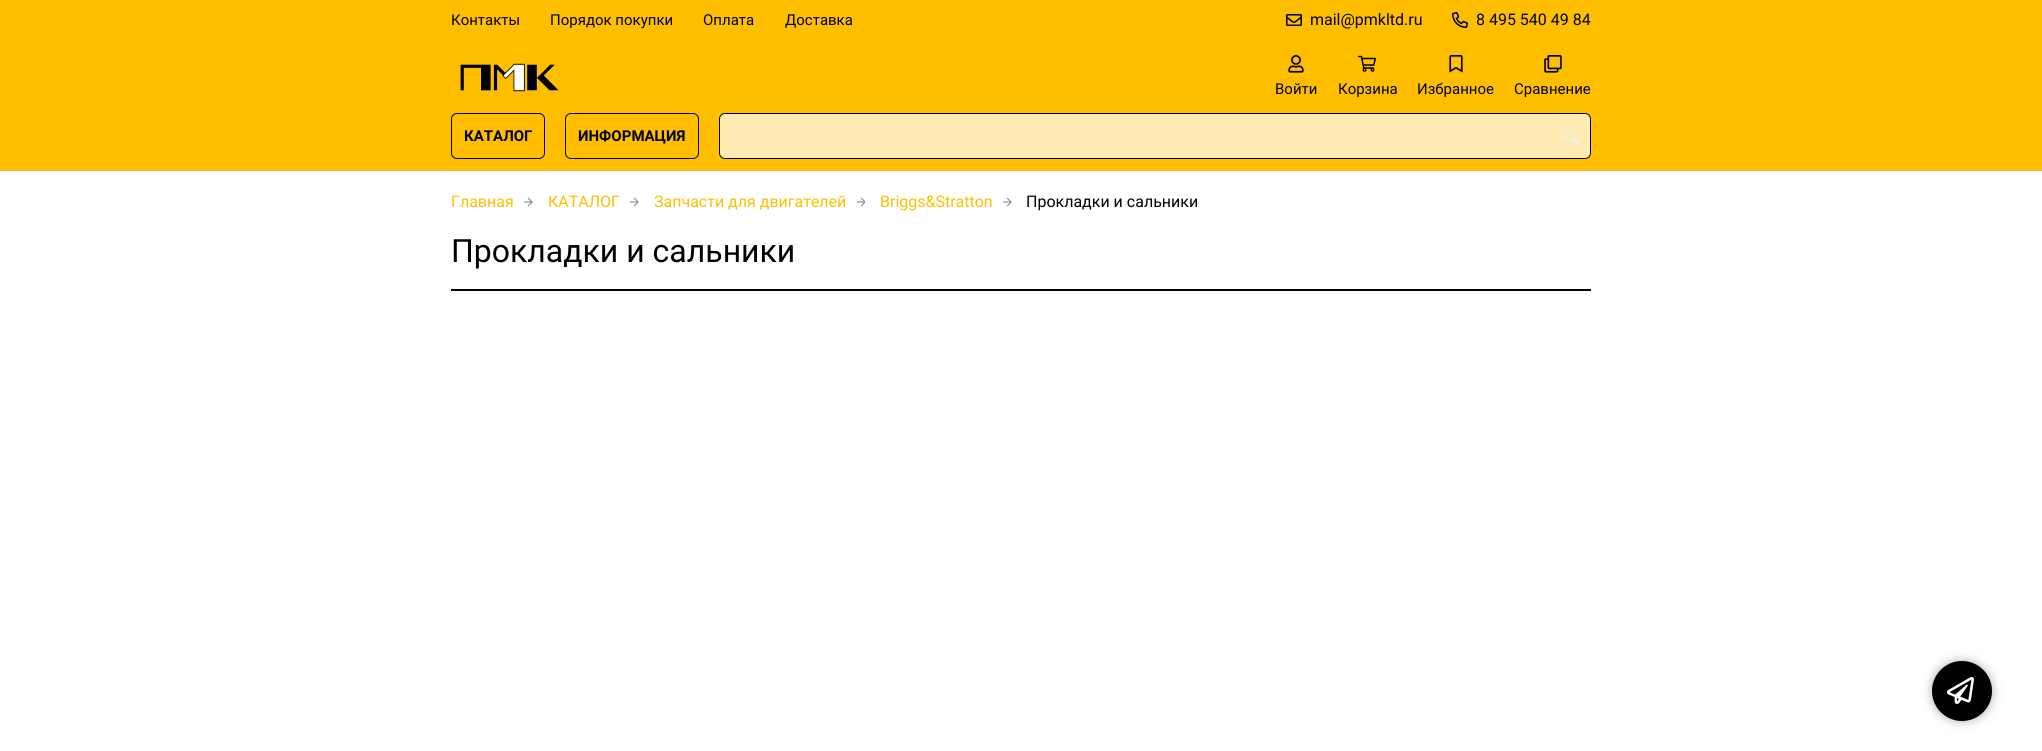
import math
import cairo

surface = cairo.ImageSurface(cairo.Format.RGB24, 2042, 751)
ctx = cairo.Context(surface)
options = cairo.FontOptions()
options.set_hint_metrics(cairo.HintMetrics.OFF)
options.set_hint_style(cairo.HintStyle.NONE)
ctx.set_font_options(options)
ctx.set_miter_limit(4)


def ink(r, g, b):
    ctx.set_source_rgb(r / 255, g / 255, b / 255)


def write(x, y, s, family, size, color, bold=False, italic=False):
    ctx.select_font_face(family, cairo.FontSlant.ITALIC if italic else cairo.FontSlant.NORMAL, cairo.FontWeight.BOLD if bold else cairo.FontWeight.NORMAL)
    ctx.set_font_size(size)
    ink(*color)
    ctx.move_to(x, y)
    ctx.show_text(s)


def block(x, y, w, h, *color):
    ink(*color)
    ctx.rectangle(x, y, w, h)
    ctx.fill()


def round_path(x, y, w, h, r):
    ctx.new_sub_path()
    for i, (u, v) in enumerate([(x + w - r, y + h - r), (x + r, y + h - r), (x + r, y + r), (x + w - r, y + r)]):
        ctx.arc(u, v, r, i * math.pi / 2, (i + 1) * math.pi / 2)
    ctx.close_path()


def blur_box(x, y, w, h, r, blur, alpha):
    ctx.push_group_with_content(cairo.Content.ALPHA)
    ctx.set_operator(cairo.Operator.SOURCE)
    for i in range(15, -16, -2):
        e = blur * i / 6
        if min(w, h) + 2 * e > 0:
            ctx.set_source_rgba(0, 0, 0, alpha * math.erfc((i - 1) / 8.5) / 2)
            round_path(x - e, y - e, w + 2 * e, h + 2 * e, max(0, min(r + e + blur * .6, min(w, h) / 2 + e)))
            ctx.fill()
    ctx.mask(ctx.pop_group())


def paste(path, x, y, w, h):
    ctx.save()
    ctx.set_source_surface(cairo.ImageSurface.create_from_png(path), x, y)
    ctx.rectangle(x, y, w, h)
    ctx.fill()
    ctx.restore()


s1 = dict(family="Roboto", size=15, color=(0, 0, 0))
s2 = dict(family="Roboto", size=16, color=(0, 0, 0))
s3 = dict(family="Roboto", size=15, color=(0, 0, 0), bold=True)
s4 = dict(family="Roboto", size=16, color=(255, 190, 0))
s5 = dict(family="Roboto", size=32, color=(0, 0, 0))

ink(255, 255, 255)
ctx.paint()
block(0, 0, 2042, 171, 255, 190, 0)
write(451, 25, "Контакты", **s1)
write(550, 25, "Порядок покупки", **s1)
write(703, 25, "Оплата", **s1)
write(785, 25, "Доставка", **s1)
paste("pic1.png", 1286, 14, 16, 12)
write(1310, 25, "mail@pmkltd.ru", **s2)
paste("pic2.png", 1452, 12, 16, 16)
write(1476, 25, "8 495 540 49 84", **s2)
paste("pic3.png", 460, 63, 99, 29)
paste("pic4.png", 1288, 55, 16, 18)
write(1275, 94, "Войти", **s1)
paste("pic5.png", 1358, 55, 18, 17)
write(1338, 94, "Корзина", **s1)
paste("pic6.png", 1449, 55, 14, 18)
write(1417, 94, "Избранное", **s1)
paste("pic7.png", 1544, 55, 18, 18)
write(1514, 94, "Сравнение", **s1)
round_path(451.5, 113.5, 93, 45, 5.5)
ctx.set_line_width(1)
ctx.stroke()
write(464, 141, "КАТАЛОГ", **s3)
round_path(565.5, 113.5, 133, 45, 5.5)
ctx.stroke()
write(578, 141, "ИНФОРМАЦИЯ", **s3)
ink(255, 236, 179)
round_path(719.5, 113.5, 871, 45, 5.5)
ctx.fill_preserve()
ink(0, 0, 0)
ctx.stroke()
paste("pic8.png", 1561, 127, 18, 18)
write(451, 207, "Главная", **s4)
paste("pic9.png", 524, 197, 9, 10)
write(548, 207, "КАТАЛОГ", **s4)
paste("pic9.png", 630, 197, 9, 10)
write(654, 207, "Запчасти для двигателей", **s4)
paste("pic10.png", 857, 197, 8, 10)
write(880, 207, "Briggs&Stratton", **s4)
paste("pic9.png", 1003, 197, 9, 10)
write(1026, 207, "Прокладки и сальники", **s2)
block(451, 289, 1140, 2, 0, 0, 0)
write(451, 262, "Прокладки и сальники", **s5)
ink(50, 50, 50)
blur_box(1932, 661, 60, 60, 30, 5, 0.4)
ink(0, 0, 0)
ctx.arc(1962, 691, 30, 0, 2 * math.pi)
ctx.fill()
paste("pic11.png", 1947, 677, 27, 27)
surface.write_to_png("screenshot.png")
